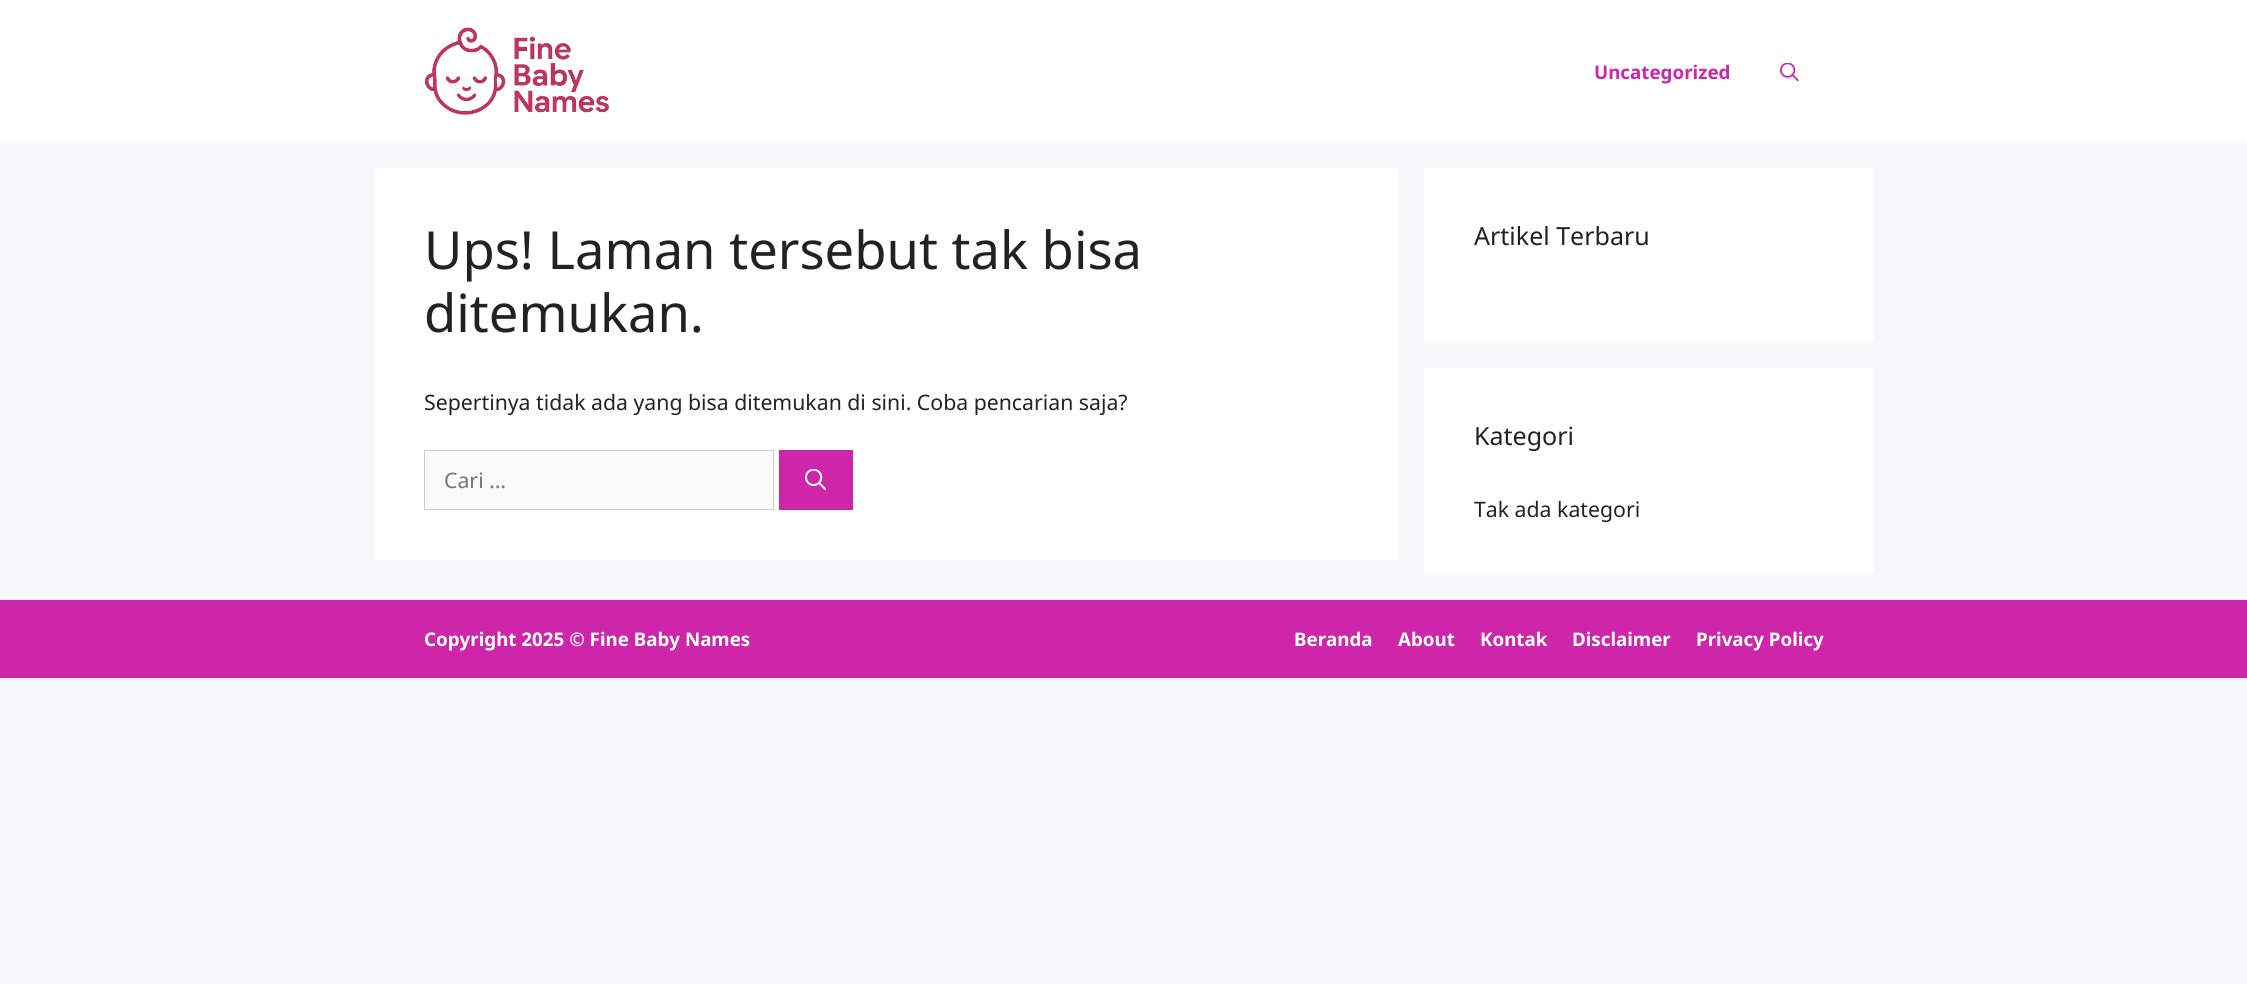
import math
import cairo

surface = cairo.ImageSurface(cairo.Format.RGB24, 2247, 984)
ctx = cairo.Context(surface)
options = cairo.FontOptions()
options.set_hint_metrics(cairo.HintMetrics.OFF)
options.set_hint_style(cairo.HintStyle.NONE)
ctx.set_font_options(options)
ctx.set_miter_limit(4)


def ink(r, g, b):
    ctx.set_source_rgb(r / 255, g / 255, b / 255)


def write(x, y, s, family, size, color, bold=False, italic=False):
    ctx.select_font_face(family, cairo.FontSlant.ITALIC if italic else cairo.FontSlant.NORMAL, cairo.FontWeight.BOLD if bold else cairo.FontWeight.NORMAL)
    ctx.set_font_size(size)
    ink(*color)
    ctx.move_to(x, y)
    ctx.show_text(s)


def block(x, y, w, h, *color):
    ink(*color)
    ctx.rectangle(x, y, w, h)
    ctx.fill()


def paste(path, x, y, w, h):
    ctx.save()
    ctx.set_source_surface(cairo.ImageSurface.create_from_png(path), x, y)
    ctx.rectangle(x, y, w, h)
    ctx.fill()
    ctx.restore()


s1 = dict(family="Noto Sans", size=18.75, color=(207, 37, 170), bold=True)
s2 = dict(family="Noto Sans", size=52.5, color=(34, 34, 34))
s3 = dict(family="Noto Sans", size=21.25, color=(34, 34, 34))
s4 = dict(family="Noto Sans", size=21.25, color=(117, 117, 117))
s5 = dict(family="Noto Sans", size=25, color=(34, 34, 34))
s6 = dict(family="Noto Sans", size=18.75, color=(255, 255, 255), bold=True)

ink(247, 248, 249)
ctx.paint()
block(0, 0, 2247, 143, 255, 255, 255)
paste("pic1.png", 425, 27, 184, 88)
write(1594, 79, "Uncategorized", **s1)
paste("pic2.png", 1780, 63, 19, 18)
block(374, 168, 1025, 392, 255, 255, 255)
write(424, 269, "Ups! Laman tersebut tak bisa", **s2)
write(424, 332, "ditemukan.", **s2)
write(424, 410, "Sepertinya tidak ada yang bisa ditemukan di sini. Coba pencarian saja?", **s3)
ink(250, 250, 250)
ctx.rectangle(424.5, 450.5, 349, 59)
ctx.fill_preserve()
ink(204, 204, 204)
ctx.set_line_width(1)
ctx.stroke()
write(444, 488, "Cari …", **s4)
block(779, 450, 74, 60, 207, 37, 170)
paste("pic3.png", 805, 469, 21, 21)
block(1424, 168, 450, 175, 255, 255, 255)
write(1474, 245, "Artikel Terbaru", **s5)
block(1424, 368, 450, 207, 255, 255, 255)
write(1474, 445, "Kategori", **s5)
write(1474, 517, "Tak ada kategori", **s3)
block(0, 600, 2247, 78, 207, 37, 170)
write(424, 646, "Copyright 2025 © Fine Baby Names", **s6)
write(1294, 646, "Beranda", **s6)
write(1398, 646, "About", **s6)
write(1480, 646, "Kontak", **s6)
write(1572, 646, "Disclaimer", **s6)
write(1696, 646, "Privacy Policy", **s6)
surface.write_to_png("screenshot.png")
